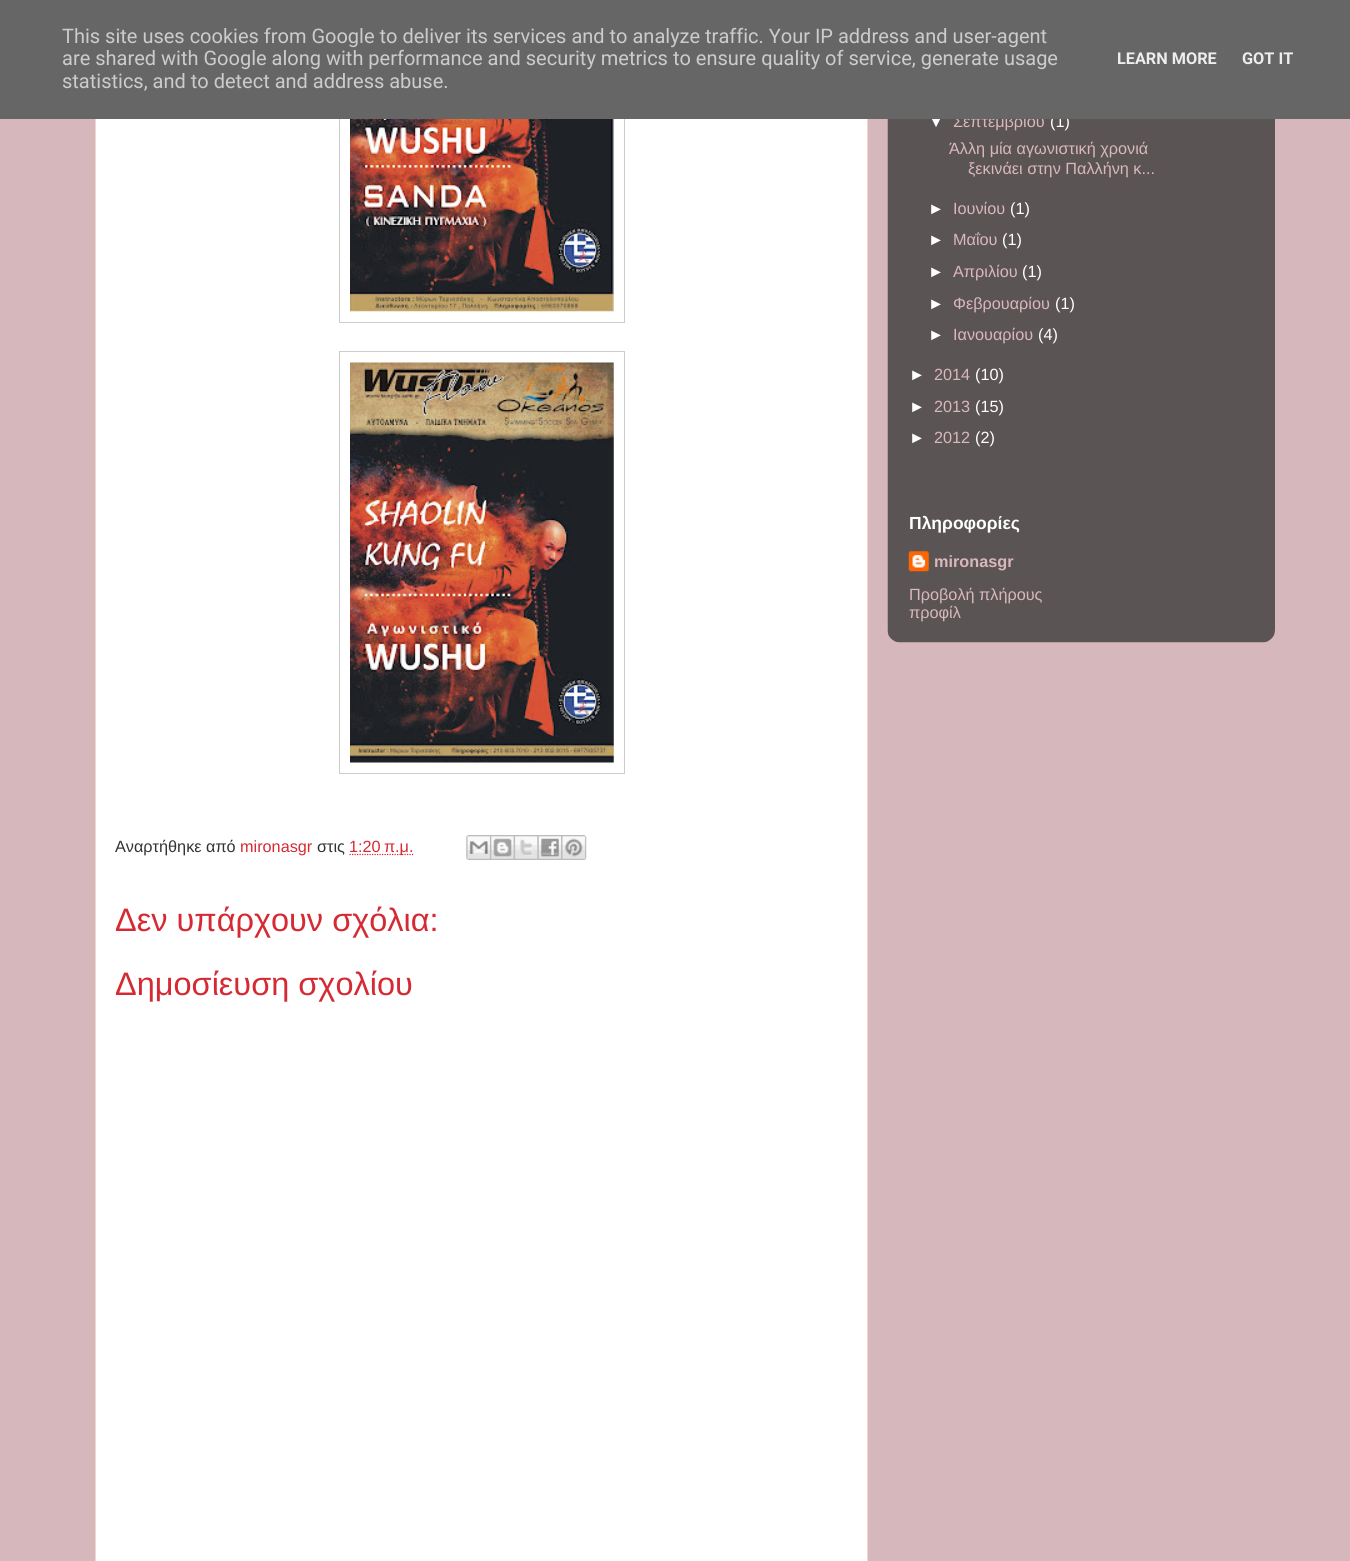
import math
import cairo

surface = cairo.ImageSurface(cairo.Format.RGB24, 1350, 1561)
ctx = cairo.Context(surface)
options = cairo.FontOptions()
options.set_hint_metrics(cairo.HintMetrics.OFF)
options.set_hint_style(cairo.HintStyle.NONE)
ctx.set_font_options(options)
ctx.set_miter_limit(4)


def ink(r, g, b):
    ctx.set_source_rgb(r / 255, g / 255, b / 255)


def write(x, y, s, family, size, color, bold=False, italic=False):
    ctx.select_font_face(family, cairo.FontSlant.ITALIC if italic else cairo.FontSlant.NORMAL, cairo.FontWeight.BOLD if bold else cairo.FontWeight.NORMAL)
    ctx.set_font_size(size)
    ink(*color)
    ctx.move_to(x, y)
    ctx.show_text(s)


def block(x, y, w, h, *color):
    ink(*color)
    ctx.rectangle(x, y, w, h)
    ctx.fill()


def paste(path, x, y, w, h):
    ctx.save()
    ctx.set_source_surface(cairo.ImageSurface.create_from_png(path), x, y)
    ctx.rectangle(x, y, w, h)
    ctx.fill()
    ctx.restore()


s1 = dict(family="Liberation Sans", size=16.25, color=(255, 255, 255))
s2 = dict(family="Liberation Sans", size=16.25, color=(218, 183, 188))
s3 = dict(family="Roboto", size=20, color=(204, 204, 204))
s4 = dict(family="Roboto", size=16.25, color=(238, 238, 238), bold=True)
s5 = dict(family="Liberation Sans", size=17.5, color=(255, 255, 255), bold=True)
s6 = dict(family="Liberation Sans", size=16.25, color=(218, 183, 188), bold=True)
s7 = dict(family="Liberation Sans", size=16.25, color=(51, 51, 51))
s8 = dict(family="Liberation Sans", size=16.25, color=(213, 42, 51))
s9 = dict(family="Liberation Sans", size=32.5, color=(213, 42, 51))

ink(213, 183, 188)
ctx.paint()
paste("pic1.png", 887, 119, 388, 524)
write(928, 127, "▼", **s1)
write(953, 127, "Σεπτεμβρίου", **s2)
write(1050, 127, "(1)", **s1)
block(96, 119, 771, 1442, 255, 255, 255)
ctx.rectangle(95.5, -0.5, 772, 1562)
ink(244, 211, 204)
ctx.set_line_width(1)
ctx.stroke()
ctx.rectangle(339.5, -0.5, 285, 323)
ink(204, 204, 204)
ctx.stroke()
block(0, 0, 1350, 119, 102, 102, 102)
write(62, 43, "This site uses cookies from Google to deliver its services and to analyze traffic. Your IP address and user-agent", **s3)
write(62, 65, "are shared with Google along with performance and security metrics to ensure quality of service, generate usage", **s3)
write(62, 88, "statistics, and to detect and address abuse.", **s3)
write(1117, 64, "LEARN MORE", **s4)
write(1242, 64, "GOT IT", **s4)
write(949, 154, "Άλλη μία αγωνιστική χρονιά", **s2)
write(968, 174, "ξεκινάει στην Παλλήνη κ...", **s2)
write(928, 214, "►", **s1)
write(953, 214, "Ιουνίου", **s2)
write(1010, 214, "(1)", **s1)
write(928, 245, "►", **s1)
write(953, 245, "Μαΐου", **s2)
write(1002, 245, "(1)", **s1)
write(928, 277, "►", **s1)
write(953, 277, "Απριλίου", **s2)
write(1022, 277, "(1)", **s1)
write(928, 309, "►", **s1)
write(953, 309, "Φεβρουαρίου", **s2)
write(1055, 309, "(1)", **s1)
write(928, 340, "►", **s1)
write(953, 340, "Ιανουαρίου", **s2)
write(1038, 340, "(4)", **s1)
write(909, 380, "►", **s1)
write(934, 380, "2014", **s2)
write(975, 380, "(10)", **s1)
write(909, 412, "►", **s1)
write(934, 412, "2013", **s2)
write(975, 412, "(15)", **s1)
write(909, 443, "►", **s1)
write(934, 443, "2012", **s2)
write(975, 443, "(2)", **s1)
write(909, 529, "Πληροφορίες", **s5)
paste("pic2.png", 908, 551, 21, 21)
write(934, 567, "mironasgr", **s6)
write(909, 600, "Προβολή πλήρους", **s2)
write(909, 618, "προφίλ", **s2)
paste("pic3.png", 350, 119, 264, 193)
ctx.rectangle(339.5, 351.5, 285, 422)
ink(204, 204, 204)
ctx.stroke()
paste("pic4.png", 350, 362, 264, 401)
write(115, 852, "Αναρτήθηκε από", **s7)
write(240, 852, "mironasgr", **s8)
write(317, 852, "στις", **s7)
ctx.new_path()
ctx.move_to(349.5, 854.5)
ctx.line_to(414, 854.5)
ink(213, 42, 51)
ctx.set_line_width(1.2)
ctx.set_dash([1.25, 1.25])
ctx.stroke()
write(349, 852, "1:20 π.μ.", **s8)
paste("pic5.png", 466, 835, 24, 25)
paste("pic6.png", 490, 835, 24, 25)
paste("pic7.png", 513, 835, 25, 25)
paste("pic8.png", 537, 835, 25, 25)
paste("pic9.png", 561, 835, 26, 25)
write(115, 931, "Δεν υπάρχουν σχόλια:", **s9)
write(115, 995, "Δημοσίευση σχολίου", **s9)
surface.write_to_png("screenshot.png")
